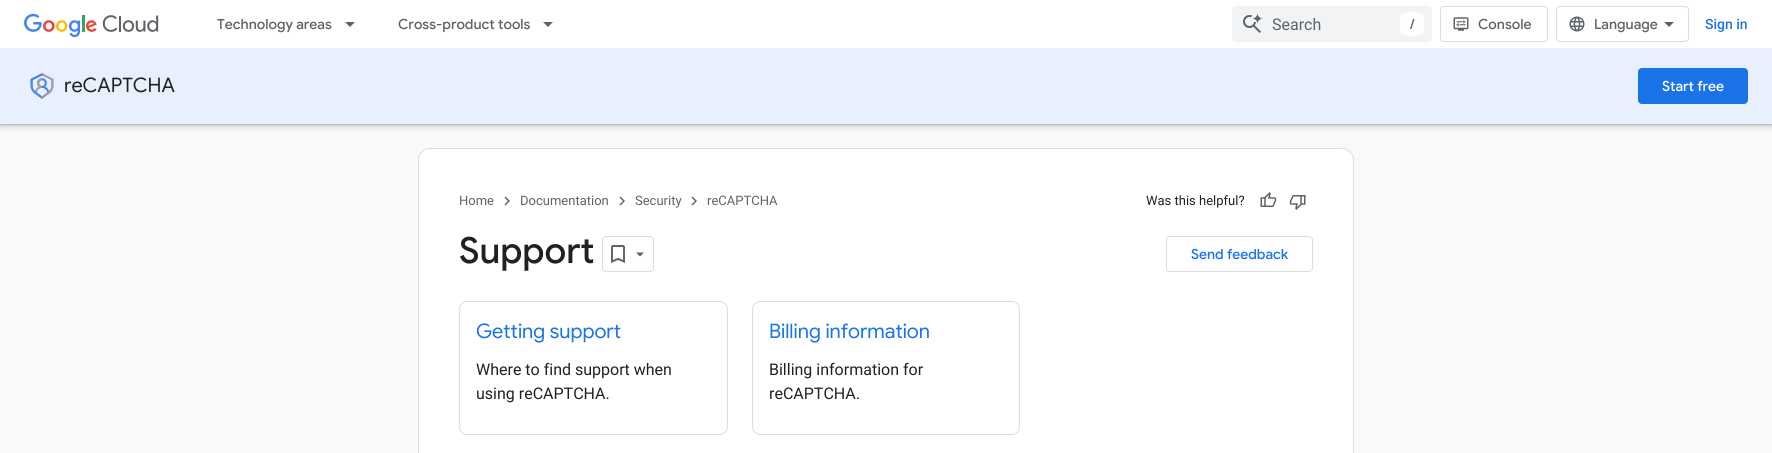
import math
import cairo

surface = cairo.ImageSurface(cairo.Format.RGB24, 1772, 453)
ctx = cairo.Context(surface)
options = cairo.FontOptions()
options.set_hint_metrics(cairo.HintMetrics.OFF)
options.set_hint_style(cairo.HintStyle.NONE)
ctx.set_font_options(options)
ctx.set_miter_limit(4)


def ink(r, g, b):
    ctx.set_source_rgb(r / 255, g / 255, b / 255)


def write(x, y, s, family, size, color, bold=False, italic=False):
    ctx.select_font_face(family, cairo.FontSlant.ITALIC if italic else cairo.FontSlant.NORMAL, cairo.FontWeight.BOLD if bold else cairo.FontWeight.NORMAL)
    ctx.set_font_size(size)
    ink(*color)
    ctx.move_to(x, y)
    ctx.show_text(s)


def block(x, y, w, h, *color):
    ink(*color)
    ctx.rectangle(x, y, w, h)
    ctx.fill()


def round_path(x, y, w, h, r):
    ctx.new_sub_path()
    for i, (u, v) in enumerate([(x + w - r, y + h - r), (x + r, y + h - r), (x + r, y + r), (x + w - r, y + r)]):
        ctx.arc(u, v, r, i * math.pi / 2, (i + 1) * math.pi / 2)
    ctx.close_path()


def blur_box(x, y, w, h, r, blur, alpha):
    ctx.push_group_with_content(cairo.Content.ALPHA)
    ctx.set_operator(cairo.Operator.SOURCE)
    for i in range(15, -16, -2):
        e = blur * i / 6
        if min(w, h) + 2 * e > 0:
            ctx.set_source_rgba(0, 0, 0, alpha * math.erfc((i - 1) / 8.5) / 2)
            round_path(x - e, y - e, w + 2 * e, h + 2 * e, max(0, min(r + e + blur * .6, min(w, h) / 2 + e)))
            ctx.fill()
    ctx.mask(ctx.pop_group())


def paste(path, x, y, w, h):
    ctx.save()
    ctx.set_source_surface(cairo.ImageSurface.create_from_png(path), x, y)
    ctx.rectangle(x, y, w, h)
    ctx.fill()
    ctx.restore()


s1 = dict(family="Google Sans Medium", size=14, color=(95, 99, 104))
s2 = dict(family="Roboto", size=16, color=(95, 99, 104))
s3 = dict(family="Roboto Medium", size=14, color=(26, 115, 232))
s4 = dict(family="Google Sans", size=20, color=(32, 33, 36))
s5 = dict(family="Google Sans Medium", size=14, color=(255, 255, 255))
s6 = dict(family="Roboto", size=13, color=(95, 99, 104))
s7 = dict(family="Roboto", size=13, color=(32, 33, 36))
s8 = dict(family="Google Sans Medium", size=36, color=(32, 33, 36))
s9 = dict(family="Google Sans Medium", size=14, color=(26, 115, 232))
s10 = dict(family="Google Sans", size=20, color=(26, 115, 232))
s11 = dict(family="Roboto", size=16, color=(32, 33, 36))

ink(248, 249, 250)
ctx.paint()
ink(60, 64, 67)
blur_box(-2, 48, 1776, 80, 0, 3, 0.15)
blur_box(0, 49, 1772, 76, 0, 1, 0.3)
block(0, 0, 1772, 48, 255, 255, 255)
paste("pic1.png", 24, 13, 135, 25)
write(217, 29, "Technology areas", **s1)
ctx.new_path()
ctx.move_to(345, 22)
ctx.line_to(355, 22)
ctx.line_to(350, 27)
ctx.close_path()
ctx.fill()
write(398, 29, "Cross-product tools", **s1)
ctx.new_path()
ctx.move_to(543, 22)
ctx.line_to(553, 22)
ctx.line_to(548, 27)
ctx.close_path()
ctx.fill()
ink(241, 243, 244)
round_path(1232, 6, 200, 36, 4)
ctx.fill()
paste("pic2.png", 1243, 13, 20, 20)
write(1272, 30, "Search", **s2)
ink(255, 255, 255)
round_path(1400, 12, 24, 24, 8)
ctx.fill()
write(1410, 29, "/", **s1)
round_path(1440.5, 6.5, 107, 35, 3.5)
ink(218, 220, 224)
ctx.set_line_width(1)
ctx.stroke()
paste("pic3.png", 1453, 17, 16, 14)
write(1478, 29, "Console", **s1)
round_path(1556.5, 6.5, 132, 35, 3.5)
ink(218, 220, 224)
ctx.stroke()
paste("pic4.png", 1569, 16, 16, 16)
write(1594, 29, "Language", **s1)
ctx.new_path()
ctx.move_to(1669, 27)
ctx.line_to(1664, 22)
ctx.line_to(1674, 22)
ctx.close_path()
ctx.fill()
write(1705, 29, "Sign in", **s3)
block(0, 48, 1772, 76, 232, 240, 254)
paste("pic5.png", 30, 73, 24, 26)
write(64, 92, "reCAPTCHA", **s4)
ink(26, 115, 232)
round_path(1638, 68, 110, 36, 4)
ctx.fill()
write(1662, 91, "Start free", **s5)
round_path(418.5, 148.5, 935, 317, 11.5)
ctx.fill_preserve()
ink(218, 220, 224)
ctx.stroke()
write(459, 205, "Home", **s6)
paste("pic6.png", 504, 196, 6, 10)
write(520, 205, "Documentation", **s6)
paste("pic6.png", 619, 196, 6, 10)
write(635, 205, "Security", **s6)
paste("pic6.png", 691, 196, 6, 10)
write(707, 205, "reCAPTCHA", **s6)
write(1146, 205, "Was this helpful?", **s7)
paste("pic7.png", 1260, 192, 17, 15)
paste("pic8.png", 1289, 195, 17, 15)
write(459, 263, "Support", **s8)
round_path(602.5, 236.5, 51, 35, 3.5)
ink(218, 220, 224)
ctx.stroke()
paste("pic9.png", 611, 245, 14, 18)
ink(95, 99, 104)
ctx.new_path()
ctx.move_to(636, 252.5)
ctx.line_to(644, 252.5)
ctx.line_to(640, 256.5)
ctx.close_path()
ctx.fill()
round_path(1166.5, 236.5, 146, 35, 3.5)
ink(218, 220, 224)
ctx.stroke()
write(1191, 259, "Send feedback", **s9)
round_path(459.5, 301.5, 268, 133, 7.5)
ink(218, 220, 224)
ctx.stroke()
write(476, 338, "Getting support", **s10)
write(476, 375, "Where to find support when", **s11)
write(476, 399, "using reCAPTCHA.", **s11)
round_path(752.5, 301.5, 267, 133, 7.5)
ink(218, 220, 224)
ctx.stroke()
write(769, 338, "Billing information", **s10)
write(769, 375, "Billing information for", **s11)
write(769, 399, "reCAPTCHA.", **s11)
surface.write_to_png("screenshot.png")
